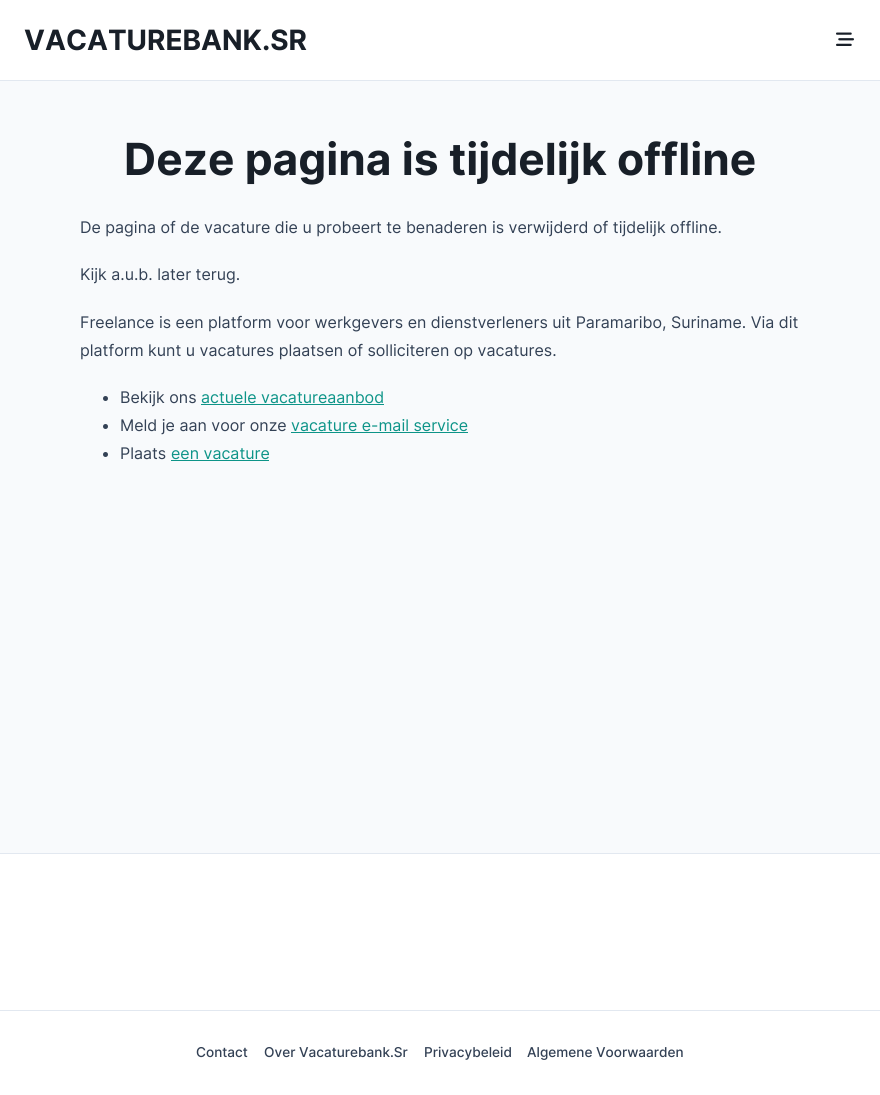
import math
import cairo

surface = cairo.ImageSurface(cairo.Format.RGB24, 880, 1095)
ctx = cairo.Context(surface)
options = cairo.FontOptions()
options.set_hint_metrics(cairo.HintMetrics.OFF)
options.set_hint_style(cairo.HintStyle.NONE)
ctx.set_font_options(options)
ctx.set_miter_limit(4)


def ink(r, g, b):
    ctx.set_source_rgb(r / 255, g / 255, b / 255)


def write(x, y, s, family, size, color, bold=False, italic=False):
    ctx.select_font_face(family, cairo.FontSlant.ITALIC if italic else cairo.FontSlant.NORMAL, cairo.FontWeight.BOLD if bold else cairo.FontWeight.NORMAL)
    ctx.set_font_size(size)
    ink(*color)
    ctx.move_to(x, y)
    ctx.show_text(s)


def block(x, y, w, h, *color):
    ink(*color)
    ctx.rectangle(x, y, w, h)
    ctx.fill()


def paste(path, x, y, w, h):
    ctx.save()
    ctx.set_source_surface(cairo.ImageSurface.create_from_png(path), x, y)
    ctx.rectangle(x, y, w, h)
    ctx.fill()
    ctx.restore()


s1 = dict(family="Inter", size=28, color=(24, 31, 40), bold=True)
s2 = dict(family="Inter", size=44.25, color=(24, 31, 40), bold=True)
s3 = dict(family="Inter", size=16, color=(51, 65, 85))
s4 = dict(family="Inter", size=16, color=(13, 148, 136))
s5 = dict(family="Inter Medium", size=13.6, color=(51, 65, 85))

ink(248, 250, 252)
ctx.paint()
block(0, 0, 880, 80, 255, 255, 255)
block(0, 80, 880, 1, 226, 232, 240)
write(24, 50, "VACATUREBANK.SR", **s1)
paste("pic1.png", 836, 32, 18, 14)
write(124, 175, "Deze pagina is tijdelijk offline", **s2)
write(80, 233, "De pagina of de vacature die u probeert te benaderen is verwijderd of tijdelijk offline.", **s3)
write(80, 280, "Kijk a.u.b. later terug.", **s3)
write(80, 328, "Freelance is een platform voor werkgevers en dienstverleners uit Paramaribo, Suriname. Via dit", **s3)
write(80, 356, "platform kunt u vacatures plaatsen of solliciteren op vacatures.", **s3)
ctx.new_path()
ctx.arc(105.5, 398.5, 2.5, 0, 2 * math.pi)
ctx.fill()
write(120, 403, "Bekijk ons", **s3)
write(201, 403, "actuele vacatureaanbod", **s4)
block(201, 404, 183, 1, 13, 148, 136)
ink(51, 65, 85)
ctx.new_path()
ctx.arc(105.5, 426.5, 2.5, 0, 2 * math.pi)
ctx.fill()
write(120, 431, "Meld je aan voor onze", **s3)
write(291, 431, "vacature e-mail service", **s4)
block(291, 432, 177, 1, 13, 148, 136)
ink(51, 65, 85)
ctx.new_path()
ctx.arc(105.5, 454.5, 2.5, 0, 2 * math.pi)
ctx.fill()
write(120, 459, "Plaats", **s3)
write(171, 459, "een vacature", **s4)
block(171, 460, 98, 1, 13, 148, 136)
block(0, 854, 880, 156, 255, 255, 255)
block(0, 853, 880, 1, 226, 232, 240)
block(0, 1011, 880, 84, 255, 255, 255)
block(0, 1010, 880, 1, 226, 232, 240)
write(196, 1057, "Contact", **s5)
write(264, 1057, "Over Vacaturebank.Sr", **s5)
write(424, 1057, "Privacybeleid", **s5)
write(527, 1057, "Algemene Voorwaarden", **s5)
surface.write_to_png("screenshot.png")
